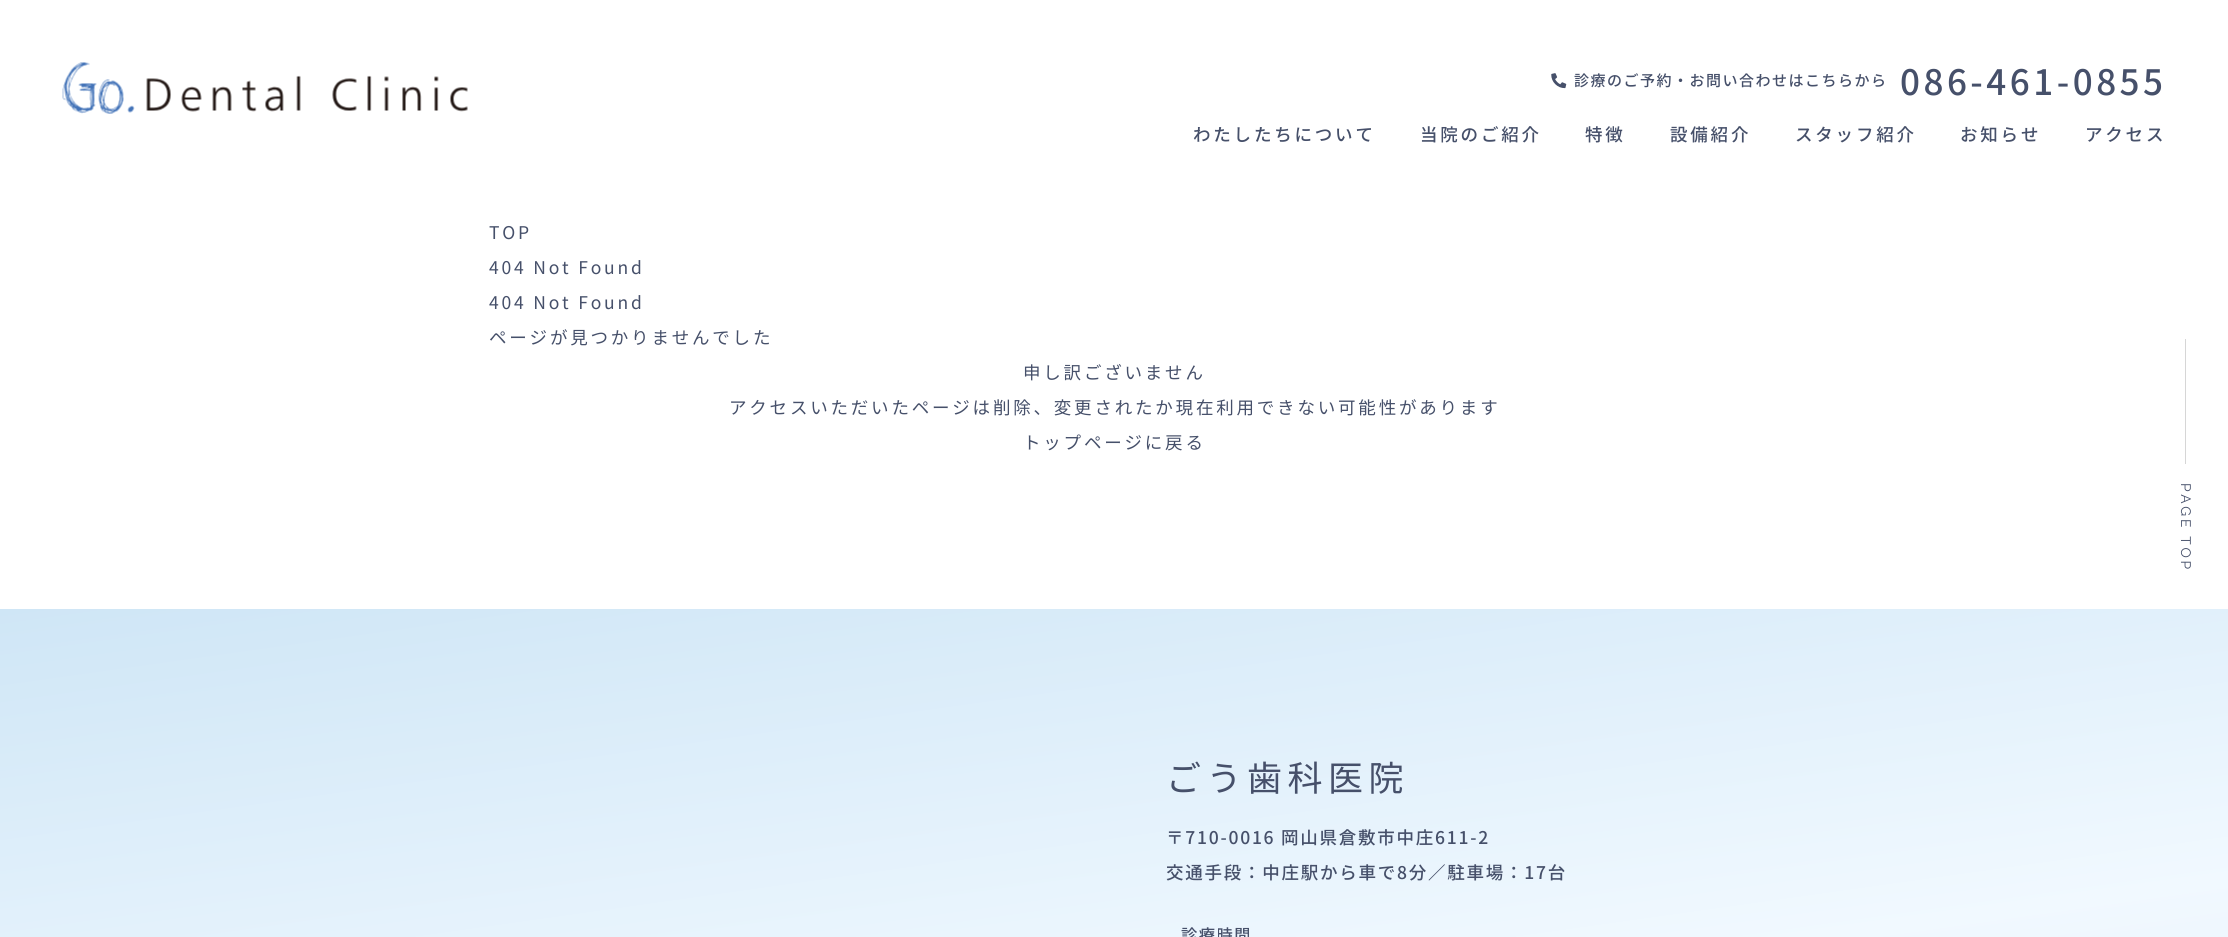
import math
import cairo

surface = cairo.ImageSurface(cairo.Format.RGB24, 2228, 937)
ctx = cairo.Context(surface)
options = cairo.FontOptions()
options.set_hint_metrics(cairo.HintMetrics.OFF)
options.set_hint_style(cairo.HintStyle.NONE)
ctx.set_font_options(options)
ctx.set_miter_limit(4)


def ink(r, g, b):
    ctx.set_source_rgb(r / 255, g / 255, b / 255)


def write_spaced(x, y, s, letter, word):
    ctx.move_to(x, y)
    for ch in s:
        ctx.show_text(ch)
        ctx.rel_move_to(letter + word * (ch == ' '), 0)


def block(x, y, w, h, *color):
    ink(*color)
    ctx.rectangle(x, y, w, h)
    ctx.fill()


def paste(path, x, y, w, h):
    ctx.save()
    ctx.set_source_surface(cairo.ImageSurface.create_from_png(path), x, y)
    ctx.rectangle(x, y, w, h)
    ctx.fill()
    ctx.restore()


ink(255, 255, 255)
ctx.paint()
paste("pic1.png", 62, 62, 406, 52)
paste("pic2.png", 1551, 73, 16, 16)
ctx.select_font_face("Noto Sans JP Medium")
ctx.set_font_size(15)
ink(70, 80, 106)
write_spaced(1574, 86, "診療のご予約・お問い合わせはこちらから", 1.5, 0)
ctx.set_font_size(35)
write_spaced(1900, 95, "086-461-0855", 3.5, 0)
ctx.set_font_size(17.5)
write_spaced(1193, 141, "わたしたちについて", 2.8, 0)
write_spaced(1420, 141, "当院のご紹介", 2.8, 0)
write_spaced(1585, 141, "特徴", 2.8, 0)
write_spaced(1670, 141, "設備紹介", 2.8, 0)
write_spaced(1795, 141, "スタッフ紹介", 2.8, 0)
write_spaced(1960, 141, "お知らせ", 2.8, 0)
write_spaced(2085, 141, "アクセス", 2.8, 0)
ctx.select_font_face("Noto Sans JP")
write_spaced(489, 239, "TOP", 2.8, 0)
write_spaced(489, 274, "404 Not Found", 2.8, 0)
write_spaced(489, 309, "404 Not Found", 2.8, 0)
write_spaced(489, 344, "ページが見つかりませんでした", 2.8, 0)
write_spaced(1023, 379, "申し訳ございません", 2.8, 0)
write_spaced(729, 414, "アクセスいただいたページは削除、変更されたか現在利用できない可能性があります", 2.8, 0)
write_spaced(1023, 449, "トップページに戻る", 2.8, 0)
gradient = cairo.LinearGradient(1032, 464, 1196, 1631)
gradient.add_color_stop_rgba(0, 0.812, 0.902, 0.965, 1)
gradient.add_color_stop_rgba(0.49, 0.945, 0.976, 1, 1)
gradient.add_color_stop_rgba(1, 0.851, 0.875, 0.945, 1)
ctx.set_source(gradient)
ctx.rectangle(0, 609, 2228, 328)
ctx.fill()
block(2185, 339, 1, 125, 214, 214, 214)
ctx.select_font_face("Raleway")
ctx.set_font_size(13.75)
ink(70, 80, 106)
ctx.save()
ctx.translate(2181, 483)
ctx.rotate(90 * math.pi / 180)
write_spaced(0, 0, "PAGE TOP", 2.75, 0)
ctx.restore()
ctx.select_font_face("Noto Sans JP")
ctx.set_font_size(35)
write_spaced(1166, 791, "ごう歯科医院", 5.5, 0)
ctx.select_font_face("Noto Sans JP Medium")
ctx.set_font_size(17.5)
write_spaced(1166, 844, "〒710-0016 岡山県倉敷市中庄611-2", 1.75, 0)
write_spaced(1166, 879, "交通手段：中庄駅から車で8分／駐車場：17台", 1.75, 0)
ctx.set_font_size(16.25)
write_spaced(1181, 941, "診療時間", 1.5, 0)
surface.write_to_png("screenshot.png")
